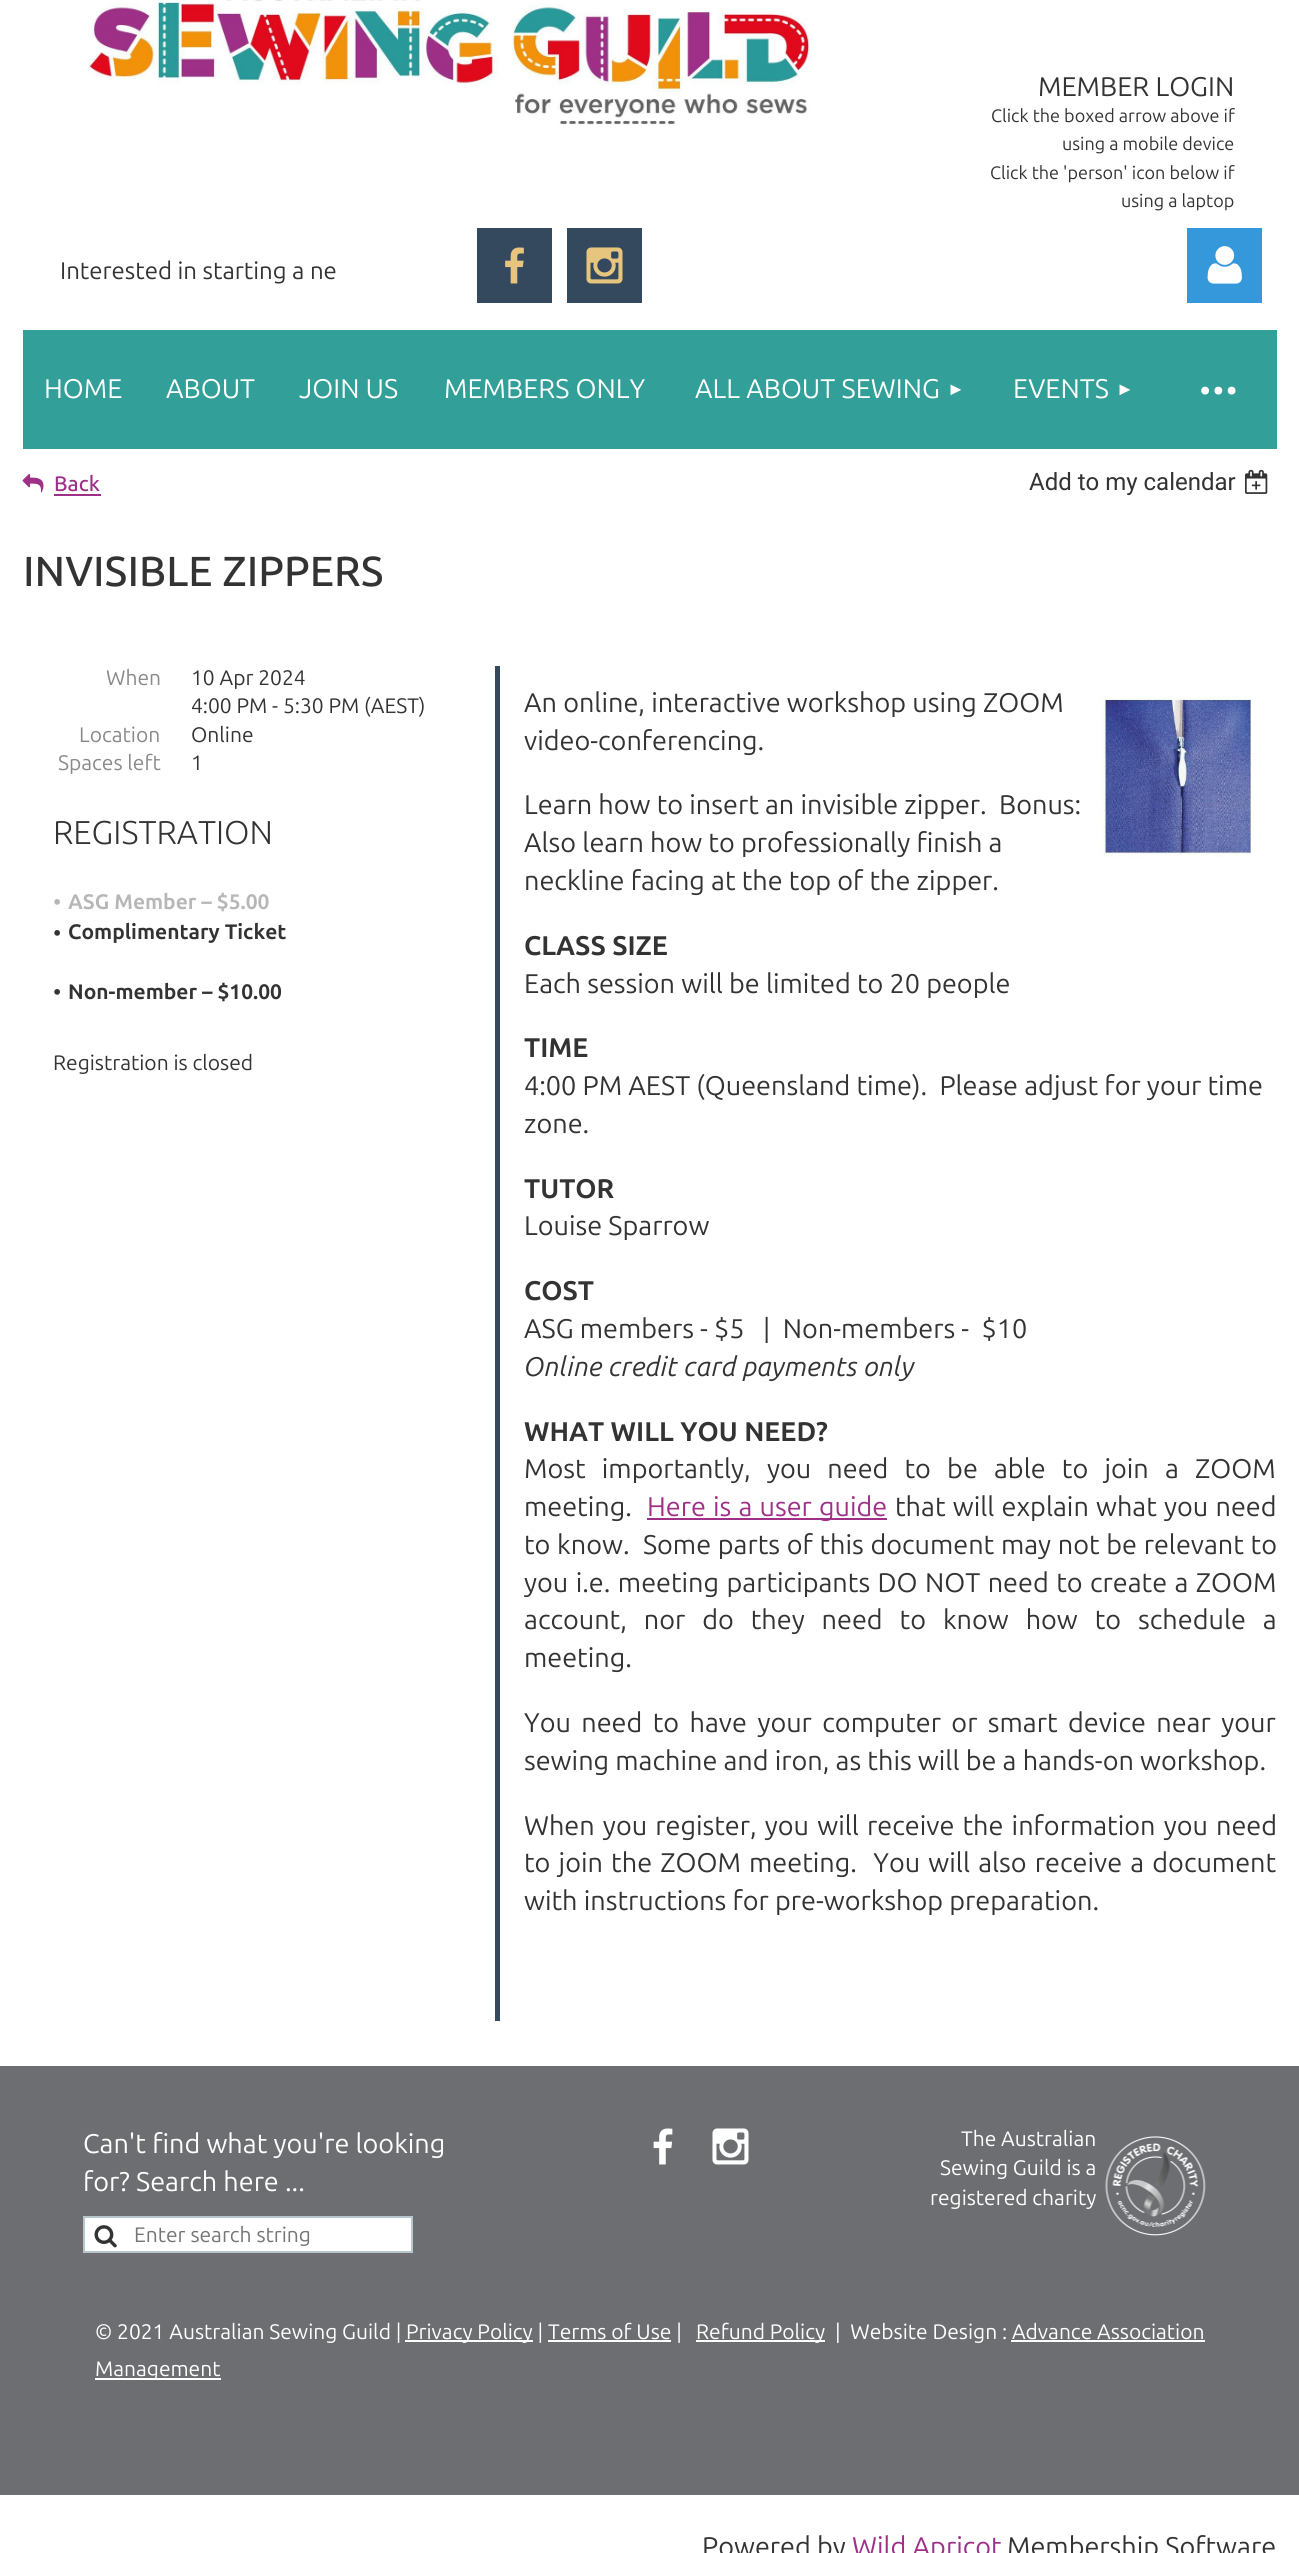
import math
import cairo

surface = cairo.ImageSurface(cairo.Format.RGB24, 1299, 2553)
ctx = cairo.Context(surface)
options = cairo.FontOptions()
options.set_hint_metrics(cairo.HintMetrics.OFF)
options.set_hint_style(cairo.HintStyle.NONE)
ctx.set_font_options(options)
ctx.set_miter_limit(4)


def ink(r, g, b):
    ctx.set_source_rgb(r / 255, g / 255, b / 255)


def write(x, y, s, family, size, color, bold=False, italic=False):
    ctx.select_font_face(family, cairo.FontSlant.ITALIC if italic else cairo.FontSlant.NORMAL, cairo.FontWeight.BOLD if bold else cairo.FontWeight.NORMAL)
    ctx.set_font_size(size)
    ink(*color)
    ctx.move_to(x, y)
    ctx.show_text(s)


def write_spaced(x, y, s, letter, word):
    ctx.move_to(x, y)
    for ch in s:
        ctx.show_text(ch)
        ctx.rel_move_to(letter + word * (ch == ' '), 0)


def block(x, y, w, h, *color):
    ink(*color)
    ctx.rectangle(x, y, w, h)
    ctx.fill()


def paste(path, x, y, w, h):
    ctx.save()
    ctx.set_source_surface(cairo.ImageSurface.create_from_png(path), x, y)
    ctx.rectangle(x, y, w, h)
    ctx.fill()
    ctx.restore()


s1 = dict(family="Ubuntu", size=27, color=(51, 51, 51))
s2 = dict(family="Ubuntu", size=18, color=(51, 51, 51))
s3 = dict(family="Ubuntu", size=24, color=(51, 51, 51))
s4 = dict(family="Ubuntu", size=27, color=(255, 255, 255))
s5 = dict(family="Liberation Sans", size=18, color=(255, 255, 255))
s6 = dict(family="Ubuntu Medium", size=21, color=(158, 48, 136))
s7 = dict(family="Roboto", size=24, color=(51, 51, 51))
s8 = dict(family="Ubuntu Medium", size=42, color=(51, 51, 51))
s9 = dict(family="Ubuntu", size=21, color=(137, 137, 137))
s10 = dict(family="Ubuntu", size=21, color=(51, 51, 51))
s11 = dict(family="Ubuntu Light", size=33, color=(51, 51, 51))
s12 = dict(family="Ubuntu", size=23, color=(183, 183, 183))
s13 = dict(family="Ubuntu", size=21, color=(183, 183, 183), bold=True)
s14 = dict(family="Ubuntu", size=23, color=(51, 51, 51))
s15 = dict(family="Ubuntu", size=21, color=(51, 51, 51), bold=True)
s16 = dict(family="Ubuntu", size=27, color=(51, 51, 51), bold=True)
s17 = dict(family="Ubuntu", size=27, color=(51, 51, 51), italic=True)
s18 = dict(family="Ubuntu", size=21, color=(117, 117, 117))
s19 = dict(family="Ubuntu", size=21, color=(255, 255, 255))
s20 = dict(family="Ubuntu", size=27, color=(158, 48, 136))

ink(255, 255, 255)
ctx.paint()
paste("pic1.png", 88, 0, 726, 125)
write(1038, 96, "MEMBER LOGIN", **s1)
write(991, 122, "Click the boxed arrow above if", **s2)
write(1062, 150, "using a mobile device", **s2)
write(990, 179, "Click the 'person' icon below if", **s2)
write(1121, 207, "using a laptop", **s2)
write(60, 279, "Interested in starting a ne", **s3)
block(477, 228, 75, 75, 52, 73, 94)
paste("pic2.png", 505, 247, 19, 37)
block(567, 228, 75, 75, 52, 73, 94)
paste("pic3.png", 586, 247, 37, 37)
block(1187, 228, 75, 75, 52, 152, 219)
paste("pic4.png", 1207, 246, 35, 38)
block(23, 330, 1254, 119, 50, 160, 153)
write(44, 398, "HOME", **s4)
write(166, 398, "ABOUT", **s4)
write(299, 398, "JOIN US", **s4)
write(444, 398, "MEMBERS ONLY", **s4)
write(695, 398, "ALL ABOUT SEWING", **s4)
write(947, 395, "►", **s5)
write(1013, 398, "EVENTS", **s4)
write(1116, 395, "►", **s5)
ctx.select_font_face("Ubuntu")
ctx.set_font_size(66)
write_spaced(1197, 410, "···", -3, 0)
paste("pic5.png", 22, 473, 22, 20)
write(54, 491, "Back", **s6)
block(54, 494, 47, 2, 158, 48, 136)
write(1029, 490, "Add to my calendar", **s7)
paste("pic6.png", 1245, 469, 23, 25)
write(23, 586, "INVISIBLE ZIPPERS", **s8)
block(495, 666, 5, 1355, 52, 73, 94)
write(106, 685, "When", **s9)
write(191, 685, "10 Apr 2024", **s10)
write(191, 713, "4:00 PM - 5:30 PM (AEST)", **s10)
write(79, 742, "Location", **s9)
write(191, 742, "Online", **s10)
write(58, 770, "Spaces left", **s9)
write(191, 770, "1", **s10)
write(53, 844, "REGISTRATION", **s11)
write(53, 910, "•", **s12)
write(68, 909, "ASG Member – $5.00", **s13)
write(53, 941, "•", **s14)
write(68, 939, "Complimentary Ticket", **s15)
write(53, 1000, "•", **s14)
write(68, 999, "Non-member – $10.00", **s15)
write(53, 1070, "Registration is closed", **s10)
write(524, 712, "An online, interactive workshop using ZOOM", **s1)
write(524, 750, "video-conferencing.", **s1)
paste("pic7.png", 1101, 695, 150, 163)
write(524, 814, "Learn how to insert an invisible zipper.  Bonus:", **s1)
write(524, 852, "Also learn how to professionally finish a", **s1)
write(524, 890, "neckline facing at the top of the zipper.", **s1)
write(524, 955, "CLASS SIZE", **s16)
write(524, 993, "Each session will be limited to 20 people", **s1)
write(524, 1057, "TIME", **s16)
write(524, 1095, "4:00 PM AEST (Queensland time).  Please adjust for your time", **s1)
write(524, 1133, "zone.", **s1)
write(524, 1198, "TUTOR", **s16)
write(524, 1235, "Louise Sparrow", **s1)
write(524, 1300, "COST", **s16)
write(524, 1338, "ASG members - $5   |  Non-members -  $10", **s1)
write(524, 1376, "Online credit card payments only", **s17)
write(524, 1441, "WHAT WILL YOU NEED?", **s16)
ctx.select_font_face("Ubuntu")
write_spaced(524, 1478, "Most importantly, you need to be able to join a ZOOM", 0, 10)
write(524, 1516, "meeting.", **s1)
block(647, 1518, 240, 2, 158, 48, 136)
write_spaced(647, 1516, "Here is a user guide", 0, 1)
ink(51, 51, 51)
write_spaced(895, 1516, "that will explain what you need", 0, 1)
write_spaced(524, 1554, "to know.  Some parts of this document may not be relevant to", 0, 0.5)
write_spaced(524, 1592, "you i.e. meeting participants DO NOT need to create a ZOOM", 0, 1.25)
write_spaced(524, 1629, "account, nor do they need to know how to schedule a", 0, 10.75)
write(524, 1667, "meeting.", **s1)
write_spaced(524, 1732, "You need to have your computer or smart device near your", 0, 4.25)
write(524, 1770, "sewing machine and iron, as this will be a hands-on workshop.", **s1)
write_spaced(524, 1835, "When you register, you will receive the information you need", 0, 2)
write_spaced(524, 1872, "to join the ZOOM meeting.  You will also receive a document", 0, 2)
write(524, 1910, "with instructions for pre-workshop preparation.", **s1)
block(0, 2066, 1299, 429, 109, 110, 113)
write(83, 2153, "Can't find what you're looking", **s4)
write(83, 2191, "for? Search here ...", **s4)
ctx.rectangle(84, 2217, 328, 35)
ctx.fill_preserve()
ink(184, 198, 205)
ctx.stroke()
paste("pic8.png", 94, 2225, 23, 23)
write(134, 2242, "Enter search string", **s18)
paste("pic9.png", 653, 2128, 20, 37)
paste("pic10.png", 712, 2128, 37, 37)
write(961, 2146, "The Australian", **s19)
write(940, 2175, "Sewing Guild is a", **s19)
write(930, 2205, "registered charity", **s19)
paste("pic11.png", 1105, 2136, 101, 100)
write(95, 2339, "© 2021 Australian Sewing Guild |", **s19)
block(405, 2340, 128, 2, 255, 255, 255)
write(406, 2339, "Privacy Policy | Terms of Use |", **s19)
block(548, 2340, 123, 2, 255, 255, 255)
block(696, 2340, 129, 2, 255, 255, 255)
write(696, 2339, "Refund Policy", **s19)
write(835, 2339, "|  Website Design : Advance Association", **s19)
block(1011, 2340, 194, 2, 255, 255, 255)
block(95, 2378, 126, 2, 255, 255, 255)
write(95, 2376, "Management", **s19)
write(702, 2556, "Powered by", **s1)
write(852, 2556, "Wild Apricot", **s20)
write(1007, 2556, "Membership Software", **s1)
surface.write_to_png("screenshot.png")
